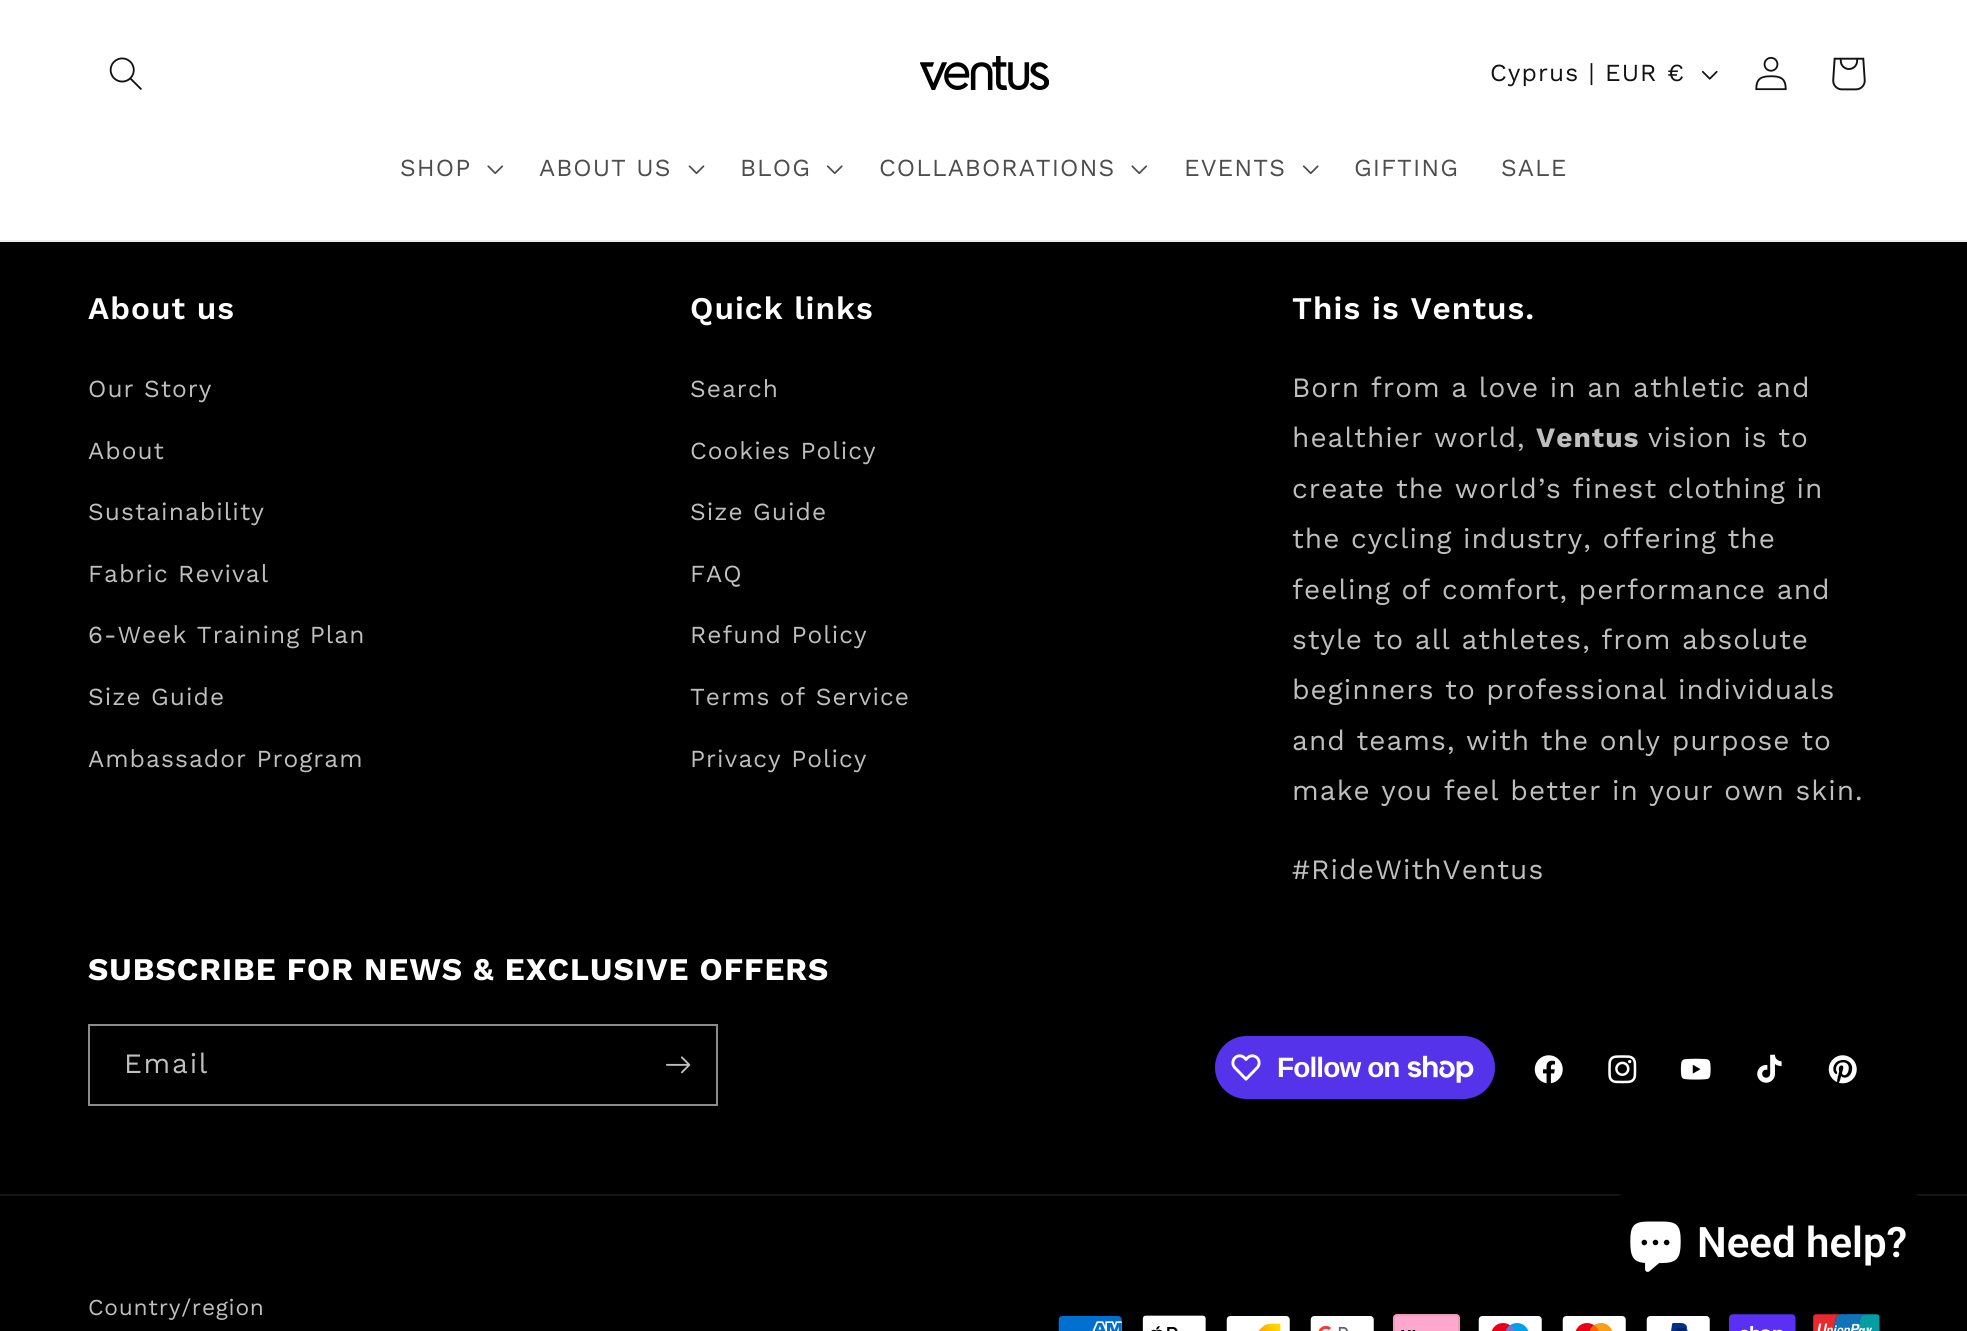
import math
import cairo

surface = cairo.ImageSurface(cairo.Format.RGB24, 1967, 1331)
ctx = cairo.Context(surface)
options = cairo.FontOptions()
options.set_hint_metrics(cairo.HintMetrics.OFF)
options.set_hint_style(cairo.HintStyle.NONE)
ctx.set_font_options(options)
ctx.set_miter_limit(4)


def ink(r, g, b):
    ctx.set_source_rgb(r / 255, g / 255, b / 255)


def write(x, y, s, family, size, color, bold=False, italic=False):
    ctx.select_font_face(family, cairo.FontSlant.ITALIC if italic else cairo.FontSlant.NORMAL, cairo.FontWeight.BOLD if bold else cairo.FontWeight.NORMAL)
    ctx.set_font_size(size)
    ink(*color)
    ctx.move_to(x, y)
    ctx.show_text(s)


def write_spaced(x, y, s, letter, word):
    ctx.move_to(x, y)
    for ch in s:
        ctx.show_text(ch)
        ctx.rel_move_to(letter + word * (ch == ' '), 0)


def block(x, y, w, h, *color):
    ink(*color)
    ctx.rectangle(x, y, w, h)
    ctx.fill()


def round_path(x, y, w, h, r):
    ctx.new_sub_path()
    for i, (u, v) in enumerate([(x + w - r, y + h - r), (x + r, y + h - r), (x + r, y + r), (x + w - r, y + r)]):
        ctx.arc(u, v, r, i * math.pi / 2, (i + 1) * math.pi / 2)
    ctx.close_path()


def paste(path, x, y, w, h):
    ctx.save()
    ctx.set_source_surface(cairo.ImageSurface.create_from_png(path), x, y)
    ctx.rectangle(x, y, w, h)
    ctx.fill()
    ctx.restore()


s1 = dict(family="Roboto SemiBold", size=42, color=(255, 255, 255))

ink(0, 0, 0)
ctx.paint()
block(0, 0, 1967, 240, 255, 255, 255)
block(0, 240, 1967, 2, 236, 236, 236)
paste("pic1.png", 109, 57, 33, 33)
paste("pic2.png", 920, 56, 129, 34)
ctx.select_font_face("Work Sans")
ctx.set_font_size(24.5)
ink(18, 18, 18)
write_spaced(1490, 81, "Cyprus | EUR €", 1.05, 0)
paste("pic3.png", 1701, 70, 17, 10)
paste("pic4.png", 1755, 56, 32, 35)
paste("pic5.png", 1832, 57, 34, 34)
ink(77, 77, 77)
write_spaced(400, 176, "SHOP", 1.05, 0)
paste("pic6.png", 487, 165, 17, 10)
write_spaced(539, 176, "ABOUT US", 1.05, 0)
paste("pic7.png", 688, 165, 17, 10)
write_spaced(740, 176, "BLOG", 1.05, 0)
paste("pic8.png", 826, 165, 17, 10)
write_spaced(879, 176, "COLLABORATIONS", 1.05, 0)
paste("pic6.png", 1131, 165, 17, 10)
write_spaced(1184, 176, "EVENTS", 1.05, 0)
paste("pic8.png", 1302, 165, 17, 10)
write_spaced(1354, 176, "GIFTING", 1.05, 0)
write_spaced(1501, 176, "SALE", 1.05, 0)
ctx.select_font_face("Work Sans SemiBold")
ctx.set_font_size(31.5)
ink(255, 255, 255)
write_spaced(88, 319, "About us", 1.05, 0)
ctx.select_font_face("Work Sans")
ctx.set_font_size(24.5)
ink(191, 191, 191)
write_spaced(88, 397, "Our Story", 1.05, 0)
write_spaced(88, 459, "About", 1.05, 0)
write_spaced(88, 520, "Sustainability", 1.05, 0)
write_spaced(88, 582, "Fabric Revival", 1.05, 0)
write_spaced(88, 643, "6-Week Training Plan", 1.05, 0)
write_spaced(88, 705, "Size Guide", 1.05, 0)
write_spaced(88, 767, "Ambassador Program", 1.05, 0)
ctx.select_font_face("Work Sans SemiBold")
ctx.set_font_size(31.5)
ink(255, 255, 255)
write_spaced(690, 319, "Quick links", 1.05, 0)
ctx.select_font_face("Work Sans")
ctx.set_font_size(24.5)
ink(191, 191, 191)
write_spaced(690, 397, "Search", 1.05, 0)
write_spaced(690, 459, "Cookies Policy", 1.05, 0)
write_spaced(690, 520, "Size Guide", 1.05, 0)
write_spaced(690, 582, "FAQ", 1.05, 0)
write_spaced(690, 643, "Refund Policy", 1.05, 0)
write_spaced(690, 705, "Terms of Service", 1.05, 0)
write_spaced(690, 767, "Privacy Policy", 1.05, 0)
ctx.select_font_face("Work Sans SemiBold")
ctx.set_font_size(31.5)
ink(255, 255, 255)
write_spaced(1292, 319, "This is Ventus.", 1.05, 0)
ctx.select_font_face("Work Sans")
ctx.set_font_size(28)
ink(191, 191, 191)
write_spaced(1292, 397, "Born from a love in an athletic and", 1.05, 0)
write_spaced(1292, 447, "healthier world,", 1.05, 0)
ctx.select_font_face("Work Sans", cairo.FontSlant.NORMAL, cairo.FontWeight.BOLD)
write_spaced(1536, 447, "Ventus", 1.05, 0)
ctx.select_font_face("Work Sans")
write_spaced(1648, 447, "vision is to", 1.05, 0)
write_spaced(1292, 498, "create the world’s finest clothing in", 1.05, 0)
write_spaced(1292, 548, "the cycling industry, offering the", 1.05, 0)
write_spaced(1292, 599, "feeling of comfort, performance and", 1.05, 0)
write_spaced(1292, 649, "style to all athletes, from absolute", 1.05, 0)
write_spaced(1292, 699, "beginners to professional individuals", 1.05, 0)
write_spaced(1292, 750, "and teams, with the only purpose to", 1.05, 0)
write_spaced(1292, 800, "make you feel better in your own skin.", 1.05, 0)
write_spaced(1292, 879, "#RideWithVentus", 1.05, 0)
ctx.select_font_face("Work Sans", cairo.FontSlant.NORMAL, cairo.FontWeight.BOLD)
ctx.set_font_size(31.5)
ink(255, 255, 255)
write_spaced(88, 980, "SUBSCRIBE FOR NEWS & EXCLUSIVE OFFERS", 1.05, 0)
ctx.rectangle(89, 1025, 628, 80)
ink(140, 140, 140)
ctx.stroke()
ctx.select_font_face("Work Sans")
ctx.set_font_size(28)
ink(191, 191, 191)
write_spaced(124, 1073, "Email", 1.75, 0)
paste("pic9.png", 666, 1056, 25, 18)
ink(84, 51, 235)
round_path(1215, 1036, 280, 63, 31.5)
ctx.fill()
paste("pic10.png", 1231, 1054, 30, 27)
ctx.select_font_face("Liberation Sans", cairo.FontSlant.NORMAL, cairo.FontWeight.BOLD)
ink(255, 255, 255)
write_spaced(1277, 1077, "Follow on", -0.9, 0)
paste("pic11.png", 1407, 1055, 67, 28)
paste("pic12.png", 1534, 1055, 29, 29)
paste("pic13.png", 1608, 1055, 29, 29)
paste("pic14.png", 1680, 1058, 31, 22)
paste("pic15.png", 1757, 1054, 25, 29)
paste("pic16.png", 1828, 1055, 29, 29)
block(0, 1194, 1967, 2, 20, 20, 20)
ctx.select_font_face("Work Sans")
ctx.set_font_size(22.75)
ink(191, 191, 191)
write_spaced(88, 1315, "Country/region", 0.75, 0)
paste("pic17.png", 1058, 1316, 64, 15)
paste("pic18.png", 1142, 1315, 64, 16)
paste("pic19.png", 1226, 1316, 64, 15)
paste("pic20.png", 1310, 1316, 64, 15)
paste("pic21.png", 1393, 1314, 67, 17)
paste("pic22.png", 1478, 1316, 64, 15)
paste("pic23.png", 1562, 1316, 64, 15)
paste("pic24.png", 1646, 1316, 64, 15)
paste("pic25.png", 1729, 1314, 67, 17)
paste("pic26.png", 1813, 1314, 67, 17)
ink(0, 0, 0)
round_path(1608, 1190, 321, 105, 28)
ctx.fill()
paste("pic27.png", 1630, 1221, 51, 51)
write(1697, 1257, "Need help?", **s1)
surface.write_to_png("screenshot.png")
